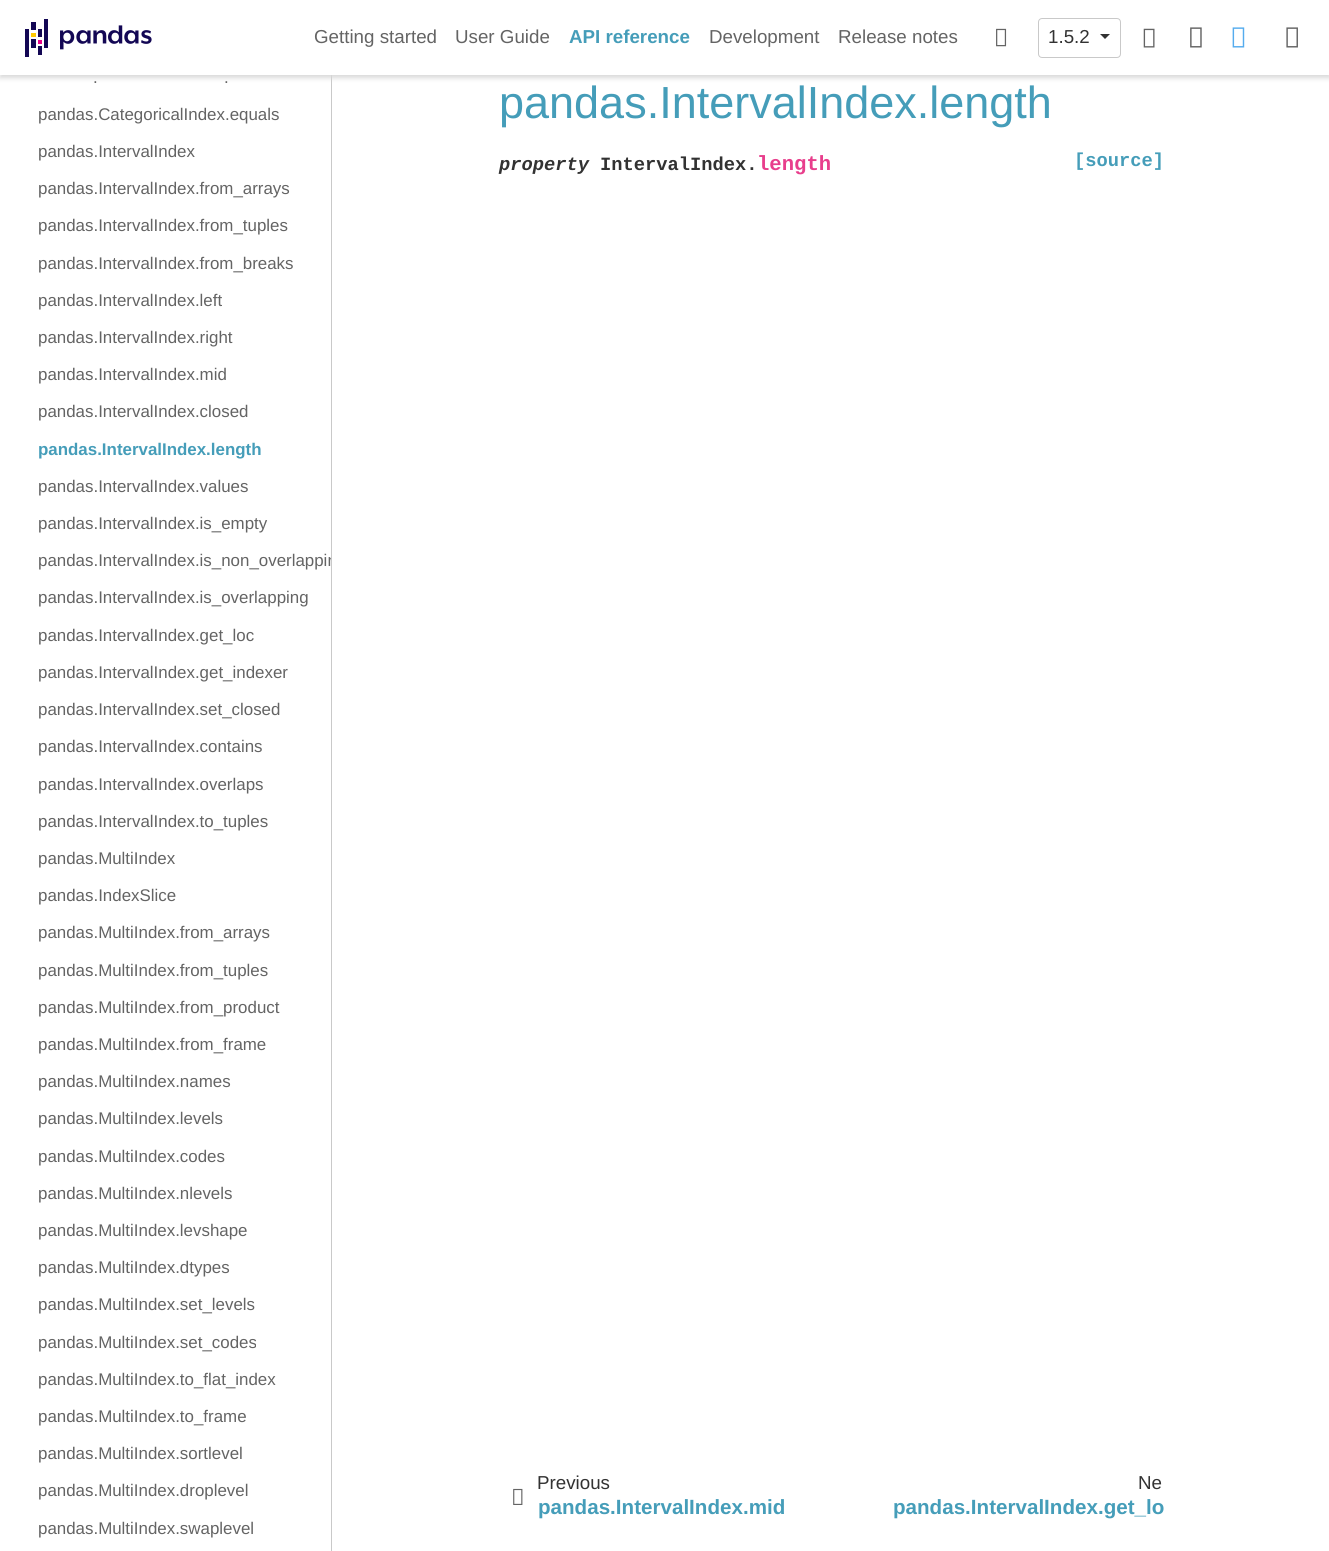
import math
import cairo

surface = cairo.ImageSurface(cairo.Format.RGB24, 1329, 1551)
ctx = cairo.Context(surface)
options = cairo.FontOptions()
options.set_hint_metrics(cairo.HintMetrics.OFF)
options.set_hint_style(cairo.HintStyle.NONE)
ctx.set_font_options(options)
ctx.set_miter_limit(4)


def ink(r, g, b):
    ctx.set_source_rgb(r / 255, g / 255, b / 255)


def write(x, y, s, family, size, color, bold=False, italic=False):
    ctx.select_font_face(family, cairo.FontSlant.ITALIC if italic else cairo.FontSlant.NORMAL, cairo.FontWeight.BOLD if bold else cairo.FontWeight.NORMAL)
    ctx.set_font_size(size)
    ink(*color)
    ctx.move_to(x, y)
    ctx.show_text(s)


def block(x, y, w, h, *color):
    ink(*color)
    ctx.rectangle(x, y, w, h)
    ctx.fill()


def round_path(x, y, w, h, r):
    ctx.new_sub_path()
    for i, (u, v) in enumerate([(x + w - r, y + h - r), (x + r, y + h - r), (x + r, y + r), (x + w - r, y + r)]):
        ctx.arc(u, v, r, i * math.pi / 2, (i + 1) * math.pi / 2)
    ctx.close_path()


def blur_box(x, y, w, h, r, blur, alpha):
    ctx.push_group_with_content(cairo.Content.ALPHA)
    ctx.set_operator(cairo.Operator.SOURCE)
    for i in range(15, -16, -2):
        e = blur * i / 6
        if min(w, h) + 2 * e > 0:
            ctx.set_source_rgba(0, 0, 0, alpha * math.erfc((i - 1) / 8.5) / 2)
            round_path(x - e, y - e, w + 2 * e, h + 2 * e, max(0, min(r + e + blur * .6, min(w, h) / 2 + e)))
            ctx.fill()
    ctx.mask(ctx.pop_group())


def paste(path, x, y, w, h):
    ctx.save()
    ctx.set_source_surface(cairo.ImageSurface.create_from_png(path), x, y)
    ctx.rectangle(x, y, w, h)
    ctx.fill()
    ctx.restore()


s1 = dict(family="Liberation Sans", size=18.75, color=(100, 100, 100))
s2 = dict(family="Liberation Sans", size=18.75, color=(69, 157, 185), bold=True)
s3 = dict(family="Liberation Sans", size=18.75, color=(50, 50, 50))
s4 = dict(family="Liberation Sans", size=16.9, color=(100, 100, 100))
s5 = dict(family="Liberation Sans", size=16.9, color=(69, 157, 185), bold=True)
s6 = dict(family="Liberation Sans", size=45, color=(69, 157, 185))
s7 = dict(family="Liberation Mono", size=18.75, color=(50, 50, 50), bold=True, italic=True)
s8 = dict(family="Liberation Mono", size=18.75, color=(50, 50, 50), bold=True)
s9 = dict(family="Liberation Mono", size=20.6, color=(232, 62, 140), bold=True)
s10 = dict(family="Liberation Mono", size=18.75, color=(69, 157, 185), bold=True)
s11 = dict(family="Liberation Sans", size=20.6, color=(69, 157, 185), bold=True)

ink(255, 255, 255)
ctx.paint()
block(331, 75, 1, 1476, 201, 201, 201)
ink(216, 216, 216)
blur_box(0, 3, 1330, 75, 0, 2.5, 1)
block(0, 0, 1329, 75, 255, 255, 255)
paste("pic1.png", 25, 19, 127, 38)
write(314, 43, "Getting started", **s1)
write(455, 43, "User Guide", **s1)
write(569, 43, "API reference", **s2)
write(709, 43, "Development", **s1)
write(838, 43, "Release notes", **s1)
paste("pic2.png", 996, 28, 11, 19)
round_path(1038.5, 18.5, 82, 39, 3.5)
ink(201, 201, 201)
ctx.set_line_width(1)
ctx.stroke()
write(1048, 43, "1.5.2", **s3)
ctx.new_path()
ctx.move_to(1100, 34)
ctx.line_to(1110, 34)
ctx.line_to(1105, 39)
ctx.close_path()
ctx.fill()
paste("pic3.png", 1143, 28, 12, 20)
paste("pic4.png", 1190, 27, 12, 21)
paste("pic5.png", 1232, 27, 13, 21)
paste("pic6.png", 1286, 27, 12, 21)
write(93, 83, ".", **s4)
write(224, 83, ".", **s4)
write(38, 120, "pandas.CategoricalIndex.equals", **s4)
write(38, 157, "pandas.IntervalIndex", **s4)
write(38, 194, "pandas.IntervalIndex.from_arrays", **s4)
write(38, 231, "pandas.IntervalIndex.from_tuples", **s4)
write(38, 269, "pandas.IntervalIndex.from_breaks", **s4)
write(38, 306, "pandas.IntervalIndex.left", **s4)
write(38, 343, "pandas.IntervalIndex.right", **s4)
write(38, 380, "pandas.IntervalIndex.mid", **s4)
write(38, 417, "pandas.IntervalIndex.closed", **s4)
write(38, 455, "pandas.IntervalIndex.length", **s5)
write(38, 492, "pandas.IntervalIndex.values", **s4)
write(38, 529, "pandas.IntervalIndex.is_empty", **s4)
ctx.save()
ctx.rectangle(0, 58, 331, 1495)
ctx.clip()
write(38, 566, "pandas.IntervalIndex.is_non_overlappin", **s4)
ctx.restore()
write(38, 603, "pandas.IntervalIndex.is_overlapping", **s4)
write(38, 641, "pandas.IntervalIndex.get_loc", **s4)
write(38, 678, "pandas.IntervalIndex.get_indexer", **s4)
write(38, 715, "pandas.IntervalIndex.set_closed", **s4)
write(38, 752, "pandas.IntervalIndex.contains", **s4)
write(38, 790, "pandas.IntervalIndex.overlaps", **s4)
write(38, 827, "pandas.IntervalIndex.to_tuples", **s4)
write(38, 864, "pandas.MultiIndex", **s4)
write(38, 901, "pandas.IndexSlice", **s4)
write(38, 938, "pandas.MultiIndex.from_arrays", **s4)
write(38, 976, "pandas.MultiIndex.from_tuples", **s4)
write(38, 1013, "pandas.MultiIndex.from_product", **s4)
write(38, 1050, "pandas.MultiIndex.from_frame", **s4)
write(38, 1087, "pandas.MultiIndex.names", **s4)
write(38, 1124, "pandas.MultiIndex.levels", **s4)
write(38, 1162, "pandas.MultiIndex.codes", **s4)
write(38, 1199, "pandas.MultiIndex.nlevels", **s4)
write(38, 1236, "pandas.MultiIndex.levshape", **s4)
write(38, 1273, "pandas.MultiIndex.dtypes", **s4)
write(38, 1310, "pandas.MultiIndex.set_levels", **s4)
write(38, 1348, "pandas.MultiIndex.set_codes", **s4)
write(38, 1385, "pandas.MultiIndex.to_flat_index", **s4)
write(38, 1422, "pandas.MultiIndex.to_frame", **s4)
write(38, 1459, "pandas.MultiIndex.sortlevel", **s4)
write(38, 1496, "pandas.MultiIndex.droplevel", **s4)
write(38, 1534, "pandas.MultiIndex.swaplevel", **s4)
write(499, 118, "pandas.IntervalIndex.length", **s6)
write(499, 170, "property", **s7)
write(600, 170, "IntervalIndex.", **s8)
write(757, 170, "length", **s9)
write(1074, 166, "[source]", **s10)
paste("pic7.png", 513, 1488, 10, 17)
write(537, 1489, "Previous", **s3)
write(538, 1514, "pandas.IntervalIndex.mid", **s11)
write(1138, 1489, "Ne", **s3)
write(893, 1514, "pandas.IntervalIndex.get_lo", **s11)
surface.write_to_png("screenshot.png")
